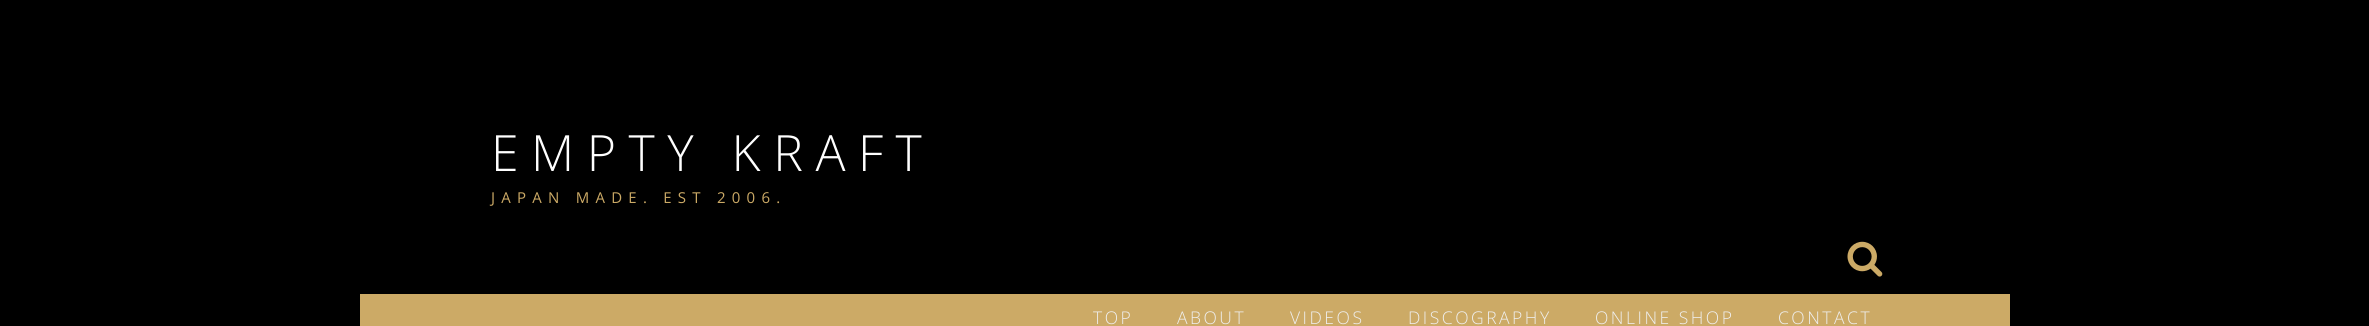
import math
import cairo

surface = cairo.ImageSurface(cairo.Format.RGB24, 2369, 326)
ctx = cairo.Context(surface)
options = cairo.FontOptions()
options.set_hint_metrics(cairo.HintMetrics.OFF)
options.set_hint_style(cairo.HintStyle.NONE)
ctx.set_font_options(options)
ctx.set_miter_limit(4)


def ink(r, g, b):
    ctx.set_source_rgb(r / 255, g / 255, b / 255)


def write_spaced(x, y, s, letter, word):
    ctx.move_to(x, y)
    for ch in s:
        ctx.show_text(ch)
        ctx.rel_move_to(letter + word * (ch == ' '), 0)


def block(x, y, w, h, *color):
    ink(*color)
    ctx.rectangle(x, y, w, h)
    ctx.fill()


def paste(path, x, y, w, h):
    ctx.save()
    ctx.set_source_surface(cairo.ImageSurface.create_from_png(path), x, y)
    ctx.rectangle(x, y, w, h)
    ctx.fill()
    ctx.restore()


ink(0, 0, 0)
ctx.paint()
ctx.select_font_face("Open Sans Light")
ctx.set_font_size(50)
ink(255, 255, 255)
write_spaced(491, 171, "EMPTY KRAFT", 12.5, 0)
ctx.select_font_face("Open Sans")
ctx.set_font_size(15)
ink(204, 170, 102)
write_spaced(491, 203, "JAPAN MADE. EST 2006.", 6.25, 0)
paste("pic1.png", 1847, 241, 36, 36)
block(360, 294, 1650, 32, 204, 170, 102)
ctx.select_font_face("Open Sans Light")
ctx.set_font_size(17.5)
ink(239, 239, 239)
write_spaced(1093, 324, "TOP", 2.5, 0)
write_spaced(1177, 324, "ABOUT", 2.5, 0)
write_spaced(1290, 324, "VIDEOS", 2.5, 0)
write_spaced(1408, 324, "DISCOGRAPHY", 2.5, 0)
write_spaced(1595, 324, "ONLINE SHOP", 2.5, 0)
write_spaced(1778, 324, "CONTACT", 2.5, 0)
surface.write_to_png("screenshot.png")
